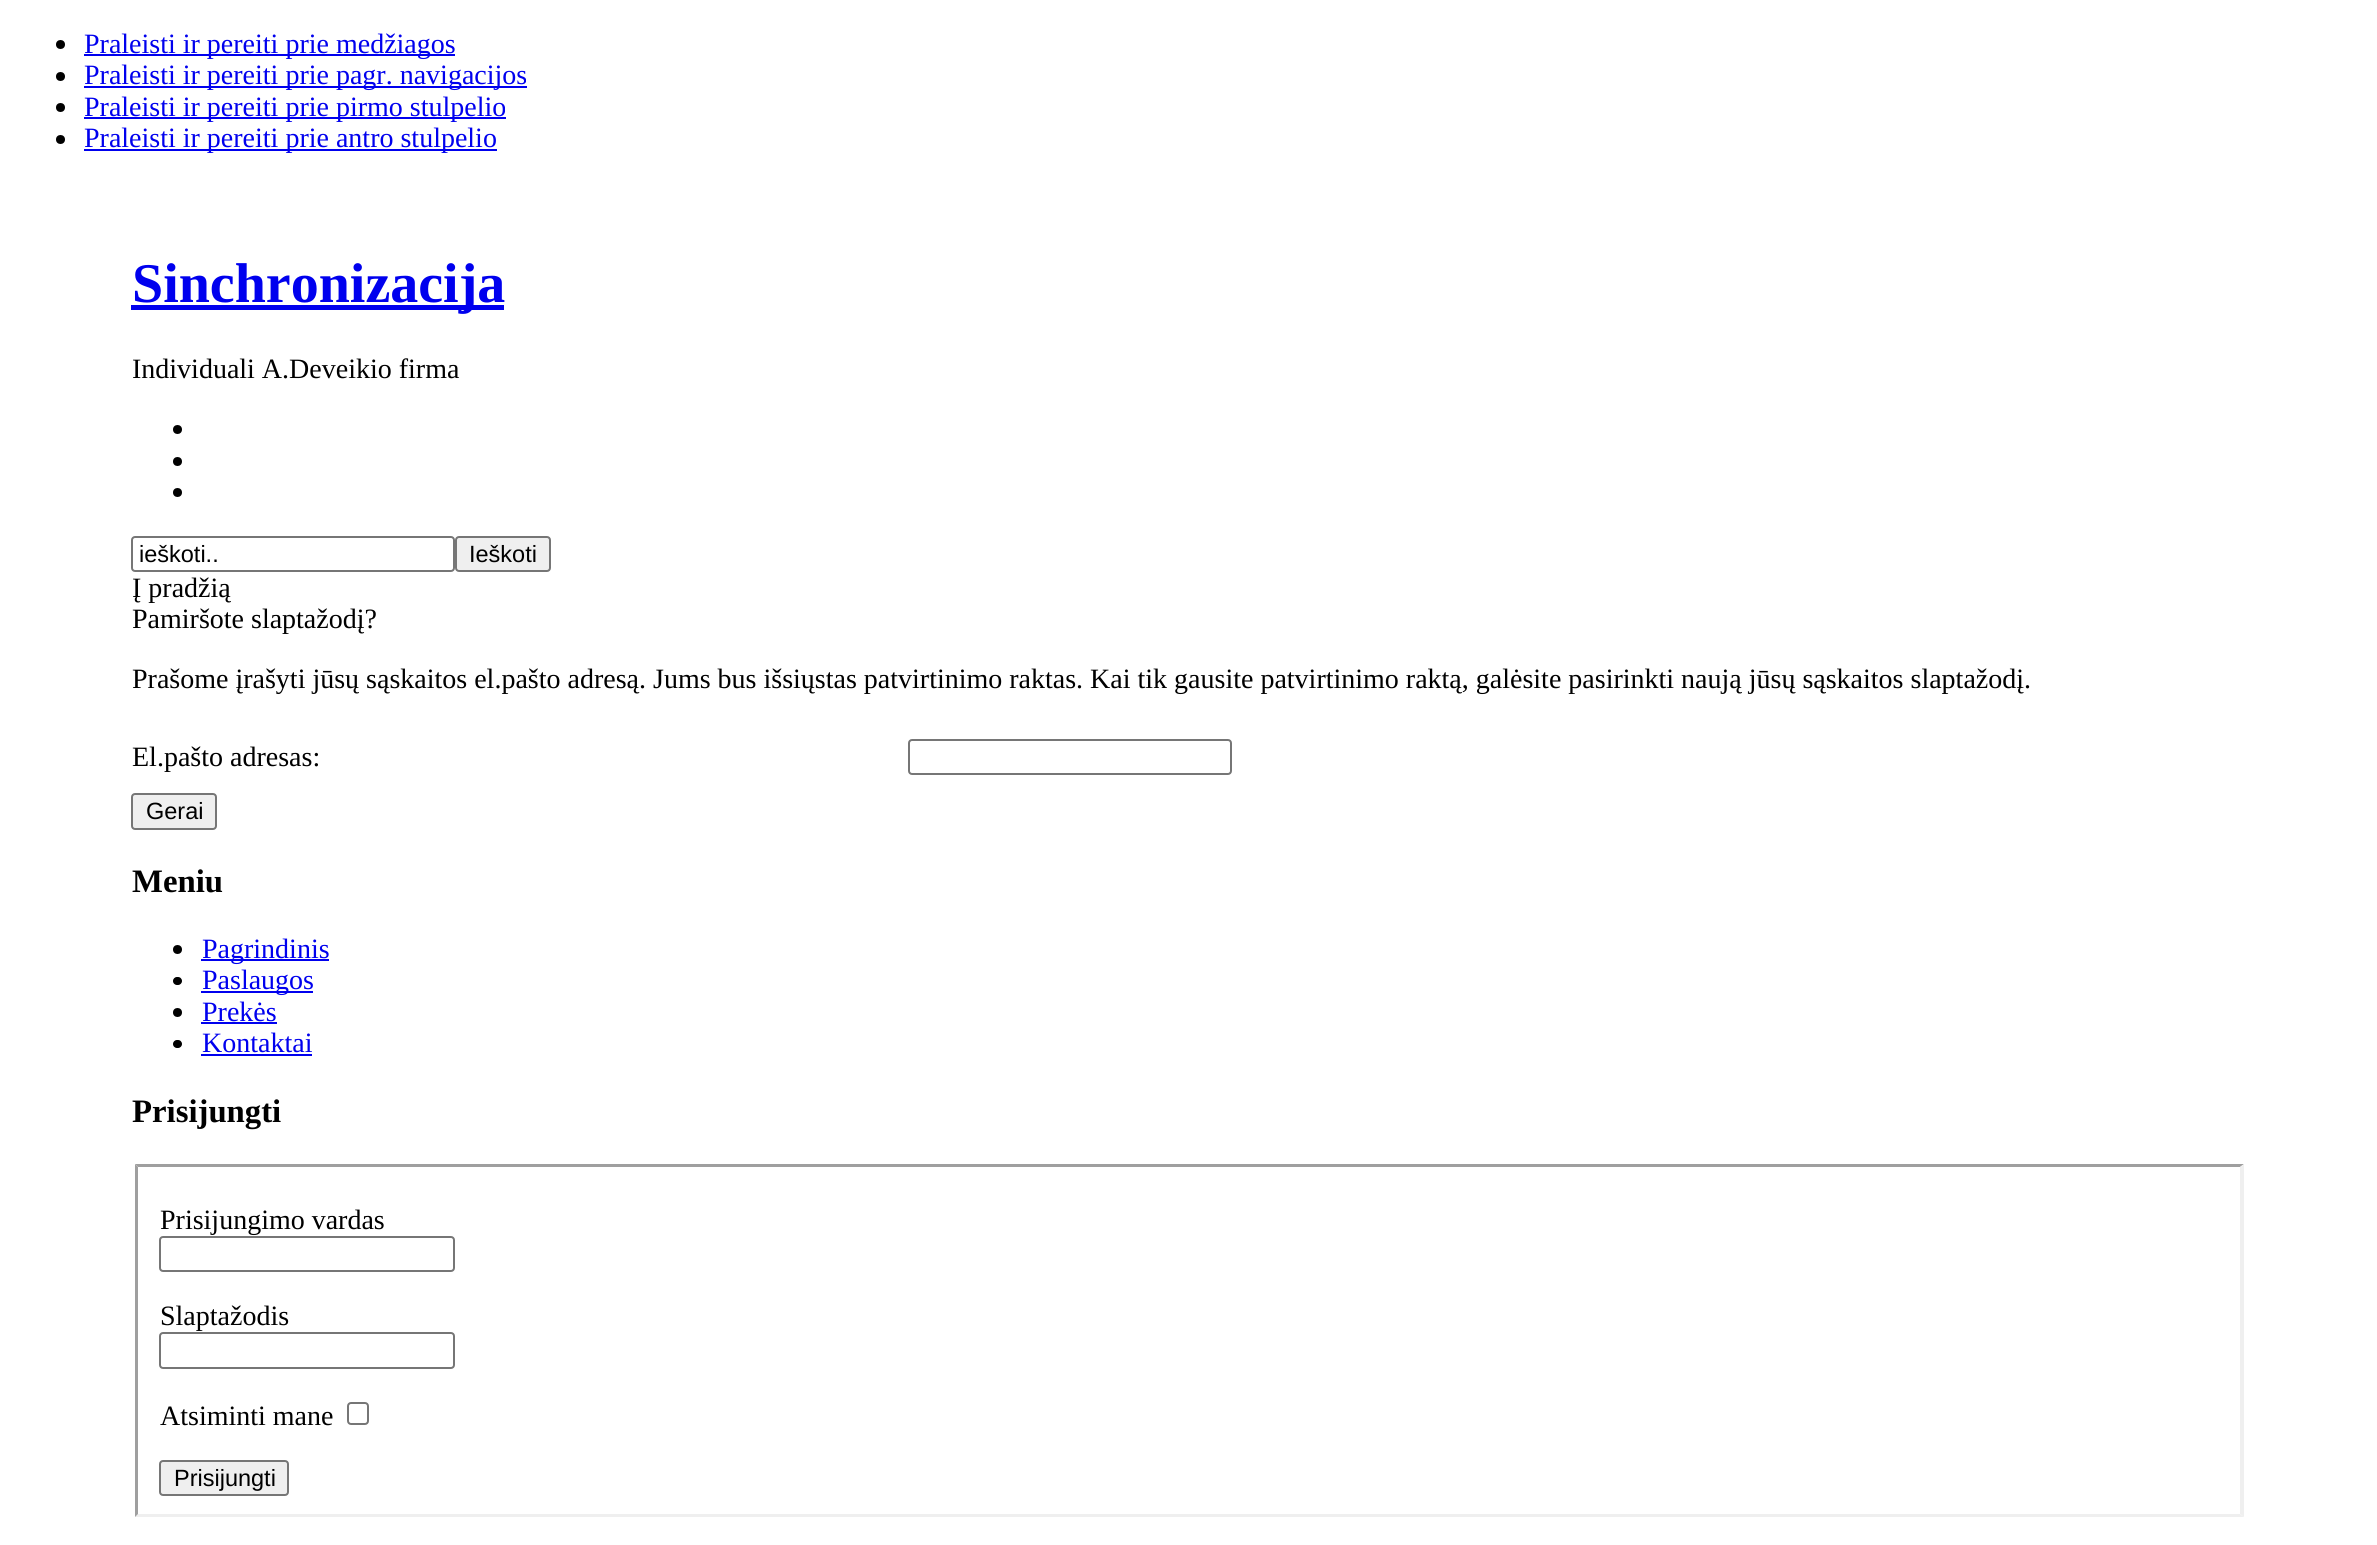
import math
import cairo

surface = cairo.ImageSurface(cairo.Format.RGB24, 2377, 1545)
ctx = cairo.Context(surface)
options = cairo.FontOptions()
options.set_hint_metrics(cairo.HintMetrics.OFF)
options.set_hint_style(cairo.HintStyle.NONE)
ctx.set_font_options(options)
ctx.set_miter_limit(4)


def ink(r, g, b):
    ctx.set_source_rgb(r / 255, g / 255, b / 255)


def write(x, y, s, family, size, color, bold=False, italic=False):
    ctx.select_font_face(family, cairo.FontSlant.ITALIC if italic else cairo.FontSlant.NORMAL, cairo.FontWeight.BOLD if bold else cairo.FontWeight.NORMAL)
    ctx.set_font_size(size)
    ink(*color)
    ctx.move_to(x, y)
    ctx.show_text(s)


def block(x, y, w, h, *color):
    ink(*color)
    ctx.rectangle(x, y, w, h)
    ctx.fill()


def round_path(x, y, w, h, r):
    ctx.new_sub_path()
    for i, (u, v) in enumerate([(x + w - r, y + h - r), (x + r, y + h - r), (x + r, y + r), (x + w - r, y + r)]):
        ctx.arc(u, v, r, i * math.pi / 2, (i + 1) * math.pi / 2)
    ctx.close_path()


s1 = dict(family="Liberation Serif", size=28, color=(0, 0, 238))
s2 = dict(family="Liberation Serif", size=56, color=(0, 0, 238), bold=True)
s3 = dict(family="Liberation Serif", size=28, color=(0, 0, 0))
s4 = dict(family="Liberation Sans", size=23.5, color=(0, 0, 0))
s5 = dict(family="Liberation Serif", size=32.75, color=(0, 0, 0), bold=True)

ink(255, 255, 255)
ctx.paint()
ink(0, 0, 0)
ctx.arc(60.5, 44.5, 4.5, 0, 2 * math.pi)
ctx.fill()
block(84, 54, 371, 2, 0, 0, 238)
write(84, 53, "Praleisti ir pereiti prie medžiagos", **s1)
ink(0, 0, 0)
ctx.new_path()
ctx.arc(60.5, 76.5, 4.5, 0, 2 * math.pi)
ctx.fill()
block(84, 86, 443, 2, 0, 0, 238)
write(84, 84, "Praleisti ir pereiti prie pagr. navigacijos", **s1)
ink(0, 0, 0)
ctx.new_path()
ctx.arc(60.5, 107.5, 4.5, 0, 2 * math.pi)
ctx.fill()
block(84, 117, 422, 2, 0, 0, 238)
write(84, 116, "Praleisti ir pereiti prie pirmo stulpelio", **s1)
ink(0, 0, 0)
ctx.new_path()
ctx.arc(60.5, 139.5, 4.5, 0, 2 * math.pi)
ctx.fill()
block(84, 149, 413, 2, 0, 0, 238)
write(84, 147, "Praleisti ir pereiti prie antro stulpelio", **s1)
block(131, 305, 373, 5, 0, 0, 238)
write(132, 302, "Sinchronizacija", **s2)
write(132, 378, "Individuali A.Deveikio firma", **s3)
ctx.new_path()
ctx.arc(177.5, 429.5, 4.5, 0, 2 * math.pi)
ctx.fill()
ctx.arc(177.5, 461.5, 4.5, 0, 2 * math.pi)
ctx.fill()
ctx.arc(177.5, 492.5, 4.5, 0, 2 * math.pi)
ctx.fill()
round_path(132, 537, 322, 34, 3)
ink(118, 118, 118)
ctx.stroke()
write(139, 562, "ieškoti..", **s4)
ink(239, 239, 239)
round_path(456, 537, 94, 34, 3)
ctx.fill_preserve()
ink(118, 118, 118)
ctx.stroke()
write(469, 562, "Ieškoti", **s4)
write(132, 597, "Į pradžią", **s3)
write(132, 628, "Pamiršote slaptažodį?", **s3)
write(132, 688, "Prašome įrašyti jūsų sąskaitos el.pašto adresą. Jums bus išsiųstas patvirtinimo raktas. Kai tik gausite patvirtinimo raktą, galėsite pasirinkti naują jūsų sąskaitos slaptažodį.", **s3)
write(132, 766, "El.pašto adresas:", **s3)
round_path(909, 740, 322, 34, 3)
ink(118, 118, 118)
ctx.stroke()
ink(239, 239, 239)
round_path(132, 794, 84, 35, 3)
ctx.fill_preserve()
ink(118, 118, 118)
ctx.stroke()
write(146, 819, "Gerai", **s4)
write(132, 892, "Meniu", **s5)
ctx.new_path()
ctx.arc(177.5, 949.5, 4.5, 0, 2 * math.pi)
ctx.fill()
block(201, 959, 128, 2, 0, 0, 238)
write(202, 958, "Pagrindinis", **s1)
ink(0, 0, 0)
round_path(173, 977, 9, 8, 4)
ctx.fill()
block(201, 991, 112, 2, 0, 0, 238)
write(202, 989, "Paslaugos", **s1)
ink(0, 0, 0)
ctx.new_path()
ctx.arc(177.5, 1012.5, 4.5, 0, 2 * math.pi)
ctx.fill()
write(202, 1021, "Prekės", **s1)
block(201, 1022, 76, 2, 0, 0, 238)
ink(0, 0, 0)
round_path(173, 1040, 9, 8, 4)
ctx.fill()
write(202, 1052, "Kontaktai", **s1)
block(201, 1054, 111, 2, 0, 0, 238)
write(132, 1122, "Prisijungti", **s5)
ink(159, 159, 159)
ctx.new_path()
ctx.move_to(135, 1164)
ctx.line_to(2244, 1164)
ctx.line_to(2240, 1167)
ctx.line_to(138, 1167)
ctx.close_path()
ctx.fill()
ink(239, 239, 239)
ctx.new_path()
ctx.move_to(2244, 1164)
ctx.line_to(2244, 1517)
ctx.line_to(2240, 1514)
ctx.line_to(2240, 1167)
ctx.close_path()
ctx.fill()
ctx.new_path()
ctx.move_to(2244, 1517)
ctx.line_to(135, 1517)
ctx.line_to(138, 1514)
ctx.line_to(2240, 1514)
ctx.close_path()
ctx.fill()
ink(159, 159, 159)
ctx.new_path()
ctx.move_to(135, 1517)
ctx.line_to(135, 1164)
ctx.line_to(138, 1167)
ctx.line_to(138, 1514)
ctx.close_path()
ctx.fill()
write(160, 1229, "Prisijungimo vardas", **s3)
round_path(160, 1237, 294, 34, 3)
ink(118, 118, 118)
ctx.stroke()
write(160, 1325, "Slaptažodis", **s3)
round_path(160, 1333, 294, 35, 3)
ink(118, 118, 118)
ctx.stroke()
write(160, 1425, "Atsiminti mane", **s3)
round_path(348, 1403, 20, 21, 3)
ink(118, 118, 118)
ctx.stroke()
ink(239, 239, 239)
round_path(160, 1461, 128, 34, 3)
ctx.fill_preserve()
ink(118, 118, 118)
ctx.stroke()
write(174, 1486, "Prisijungti", **s4)
surface.write_to_png("screenshot.png")
